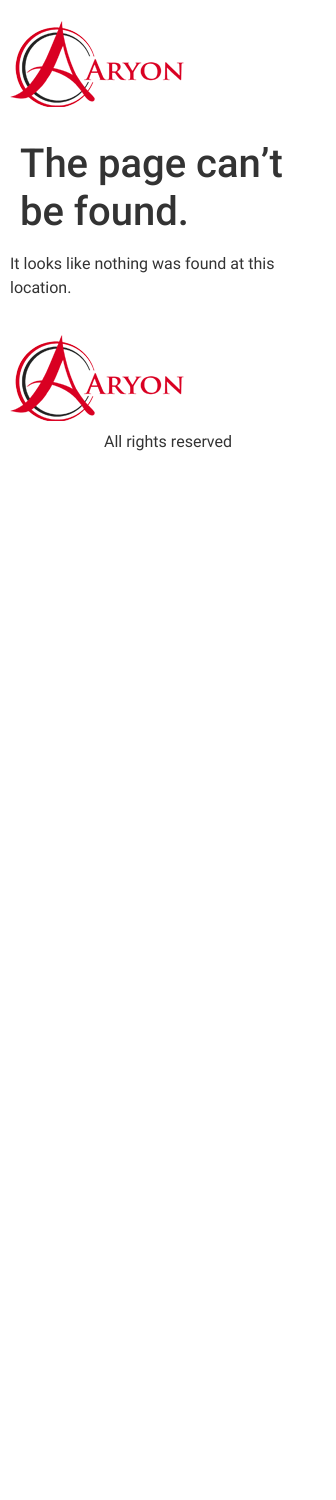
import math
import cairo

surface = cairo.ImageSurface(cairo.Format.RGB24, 336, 1500)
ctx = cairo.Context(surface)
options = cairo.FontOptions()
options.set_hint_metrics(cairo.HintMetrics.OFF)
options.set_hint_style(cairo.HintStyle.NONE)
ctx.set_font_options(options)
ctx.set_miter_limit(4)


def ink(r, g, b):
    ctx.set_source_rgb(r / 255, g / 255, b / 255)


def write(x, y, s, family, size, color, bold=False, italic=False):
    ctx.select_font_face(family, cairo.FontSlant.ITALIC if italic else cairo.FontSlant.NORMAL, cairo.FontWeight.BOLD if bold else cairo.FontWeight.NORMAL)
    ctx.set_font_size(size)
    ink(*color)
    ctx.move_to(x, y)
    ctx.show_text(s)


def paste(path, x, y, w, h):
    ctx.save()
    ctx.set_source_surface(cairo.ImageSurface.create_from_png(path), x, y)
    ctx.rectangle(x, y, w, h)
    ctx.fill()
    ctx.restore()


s1 = dict(family="Roboto Medium", size=40, color=(51, 51, 51))
s2 = dict(family="Roboto", size=16, color=(51, 51, 51))

ink(255, 255, 255)
ctx.paint()
paste("pic1.png", 10, 21, 174, 86)
write(20, 177, "The page can’t", **s1)
write(20, 225, "be found.", **s1)
write(10, 269, "It looks like nothing was found at this", **s2)
write(10, 293, "location.", **s2)
paste("pic1.png", 10, 335, 174, 86)
write(104, 447, "All rights reserved", **s2)
surface.write_to_png("screenshot.png")
